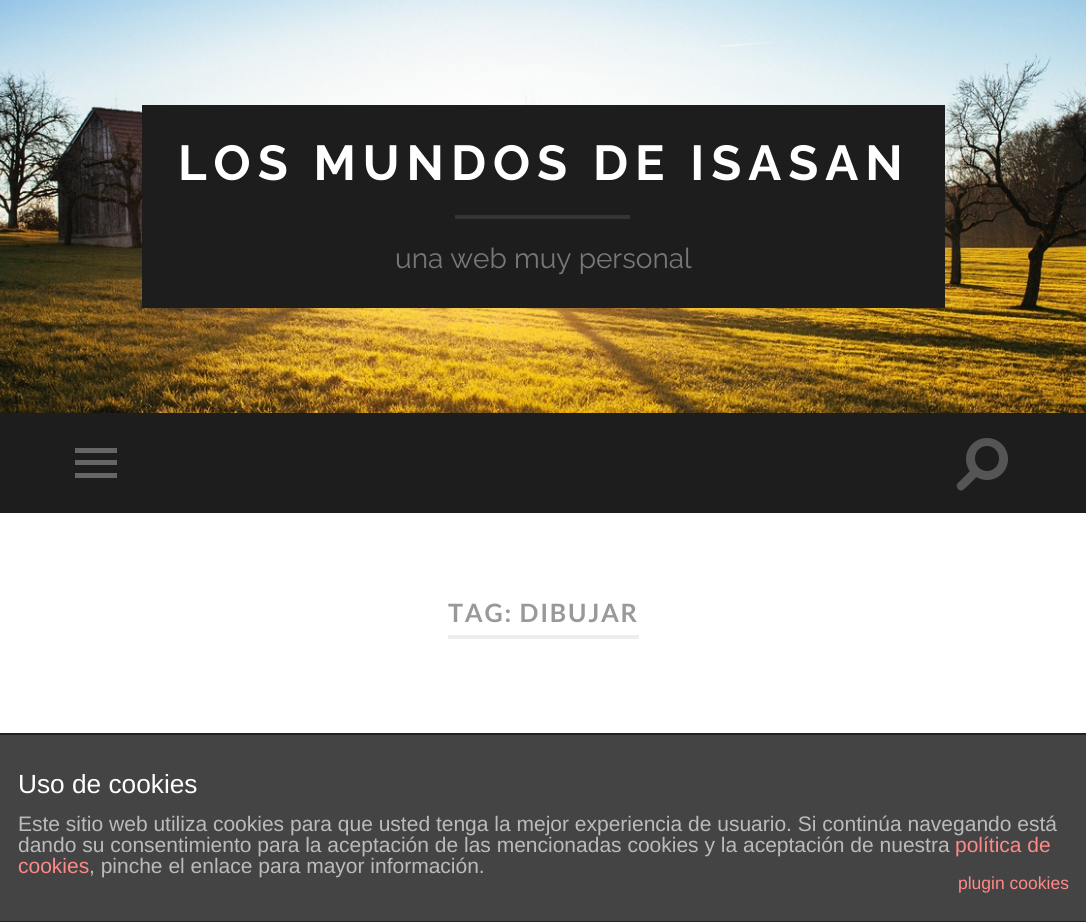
import math
import cairo

surface = cairo.ImageSurface(cairo.Format.RGB24, 1086, 922)
ctx = cairo.Context(surface)
options = cairo.FontOptions()
options.set_hint_metrics(cairo.HintMetrics.OFF)
options.set_hint_style(cairo.HintStyle.NONE)
ctx.set_font_options(options)
ctx.set_miter_limit(4)


def ink(r, g, b):
    ctx.set_source_rgb(r / 255, g / 255, b / 255)


def write(x, y, s, family, size, color, bold=False, italic=False):
    ctx.select_font_face(family, cairo.FontSlant.ITALIC if italic else cairo.FontSlant.NORMAL, cairo.FontWeight.BOLD if bold else cairo.FontWeight.NORMAL)
    ctx.set_font_size(size)
    ink(*color)
    ctx.move_to(x, y)
    ctx.show_text(s)


def write_spaced(x, y, s, letter, word):
    ctx.move_to(x, y)
    for ch in s:
        ctx.show_text(ch)
        ctx.rel_move_to(letter + word * (ch == ' '), 0)


def block(x, y, w, h, *color):
    ink(*color)
    ctx.rectangle(x, y, w, h)
    ctx.fill()


def round_path(x, y, w, h, r):
    ctx.new_sub_path()
    for i, (u, v) in enumerate([(x + w - r, y + h - r), (x + r, y + h - r), (x + r, y + r), (x + w - r, y + r)]):
        ctx.arc(u, v, r, i * math.pi / 2, (i + 1) * math.pi / 2)
    ctx.close_path()


def paste(path, x, y, w, h):
    ctx.save()
    ctx.set_source_surface(cairo.ImageSurface.create_from_png(path), x, y)
    ctx.rectangle(x, y, w, h)
    ctx.fill()
    ctx.restore()


s1 = dict(family="Raleway", size=28, color=(119, 119, 119))
s2 = dict(family="Liberation Sans", size=26.25, color=(255, 255, 255))
s3 = dict(family="Liberation Sans", size=21, color=(187, 187, 187))
s4 = dict(family="Liberation Sans", size=21, color=(255, 136, 136))
s5 = dict(family="Liberation Sans", size=17.5, color=(255, 136, 136))

ink(255, 255, 255)
ctx.paint()
paste("pic1.png", 0, 0, 1086, 413)
block(142, 105, 803, 203, 29, 29, 29)
ctx.select_font_face("Raleway", cairo.FontSlant.NORMAL, cairo.FontWeight.BOLD)
ctx.set_font_size(49)
ink(255, 255, 255)
write_spaced(178, 180, "LOS MUNDOS DE ISASAN", 7, 0)
block(455, 215, 175, 4, 52, 52, 52)
write(395, 268, "una web muy personal", **s1)
block(0, 413, 1086, 100, 29, 29, 29)
block(75, 448, 42, 5, 102, 102, 102)
block(75, 460, 42, 5, 102, 102, 102)
block(75, 473, 42, 5, 102, 102, 102)
ink(85, 85, 85)
ctx.new_path()
ctx.arc(987, 459, 21, 0, 2 * math.pi)
ctx.fill()
ink(29, 29, 29)
round_path(975, 446, 24, 25, 12)
ctx.fill()
ink(85, 85, 85)
ctx.new_path()
ctx.move_to(957.5, 483.5)
ctx.line_to(972.5, 468.5)
ctx.line_to(978.5, 475)
ctx.curve_to(976, 477.5, 964, 490, 962, 490.5)
ctx.curve_to(958.5, 491.5, 955, 486, 957.5, 483.5)
ctx.close_path()
ctx.fill()
block(448, 635, 191, 4, 238, 238, 238)
ctx.select_font_face("Lato", cairo.FontSlant.NORMAL, cairo.FontWeight.BOLD)
ctx.set_font_size(25.25)
ink(153, 153, 153)
write_spaced(448, 622, "TAG: DIBUJAR", 1.75, 0)
block(0, 735, 1086, 186, 68, 68, 68)
block(0, 733, 1086, 2, 34, 34, 34)
block(0, 921, 1086, 1, 34, 34, 34)
write(18, 793, "Uso de cookies", **s2)
write(18, 831, "Este sitio web utiliza cookies para que usted tenga la mejor experiencia de usuario. Si continúa navegando está", **s3)
write(18, 852, "dando su consentimiento para la aceptación de las mencionadas cookies y la aceptación de nuestra", **s3)
write(955, 852, "política de", **s4)
write(18, 873, "cookies", **s4)
write(89, 873, ", pinche el enlace para mayor información.", **s3)
write(958, 889, "plugin cookies", **s5)
surface.write_to_png("screenshot.png")
